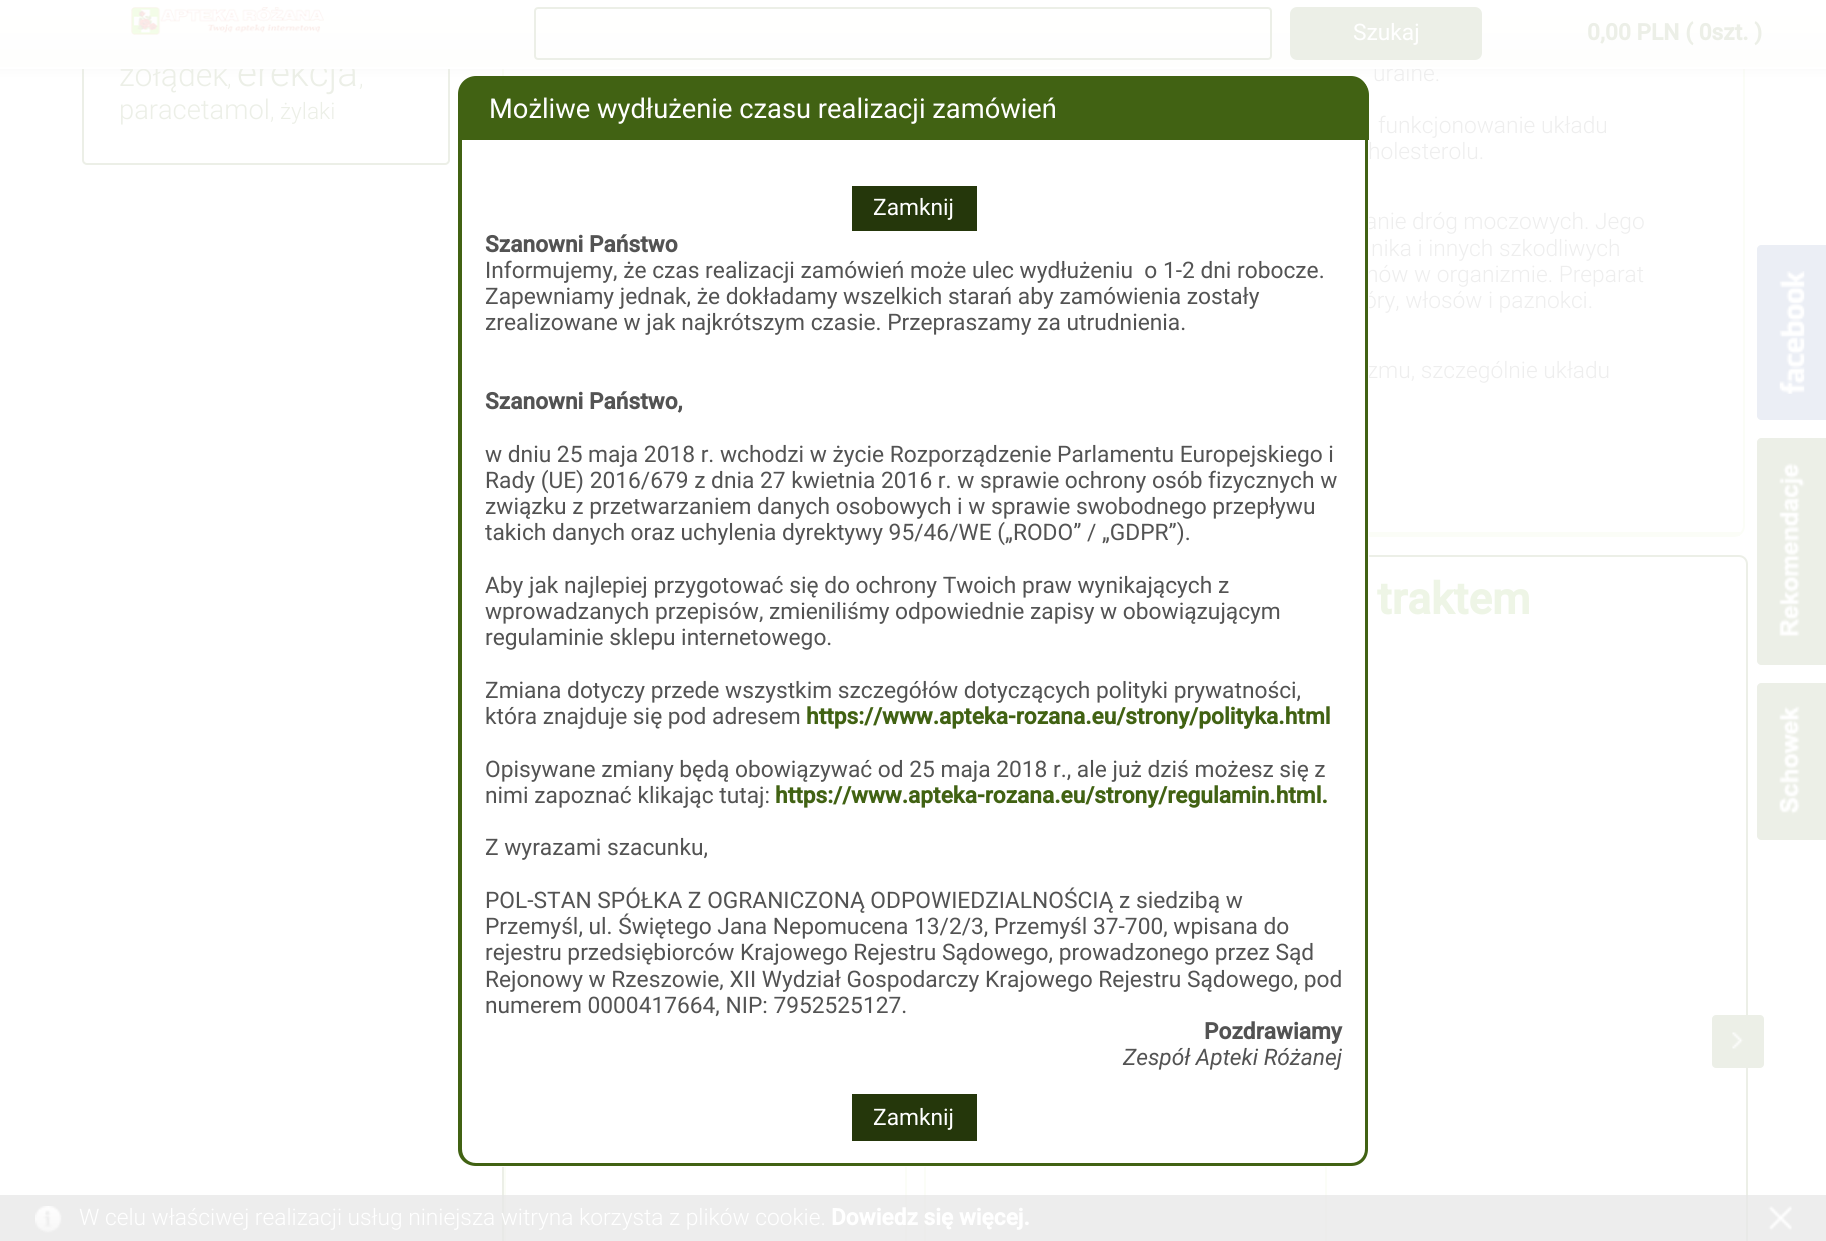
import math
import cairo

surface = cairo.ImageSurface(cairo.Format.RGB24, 1826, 1241)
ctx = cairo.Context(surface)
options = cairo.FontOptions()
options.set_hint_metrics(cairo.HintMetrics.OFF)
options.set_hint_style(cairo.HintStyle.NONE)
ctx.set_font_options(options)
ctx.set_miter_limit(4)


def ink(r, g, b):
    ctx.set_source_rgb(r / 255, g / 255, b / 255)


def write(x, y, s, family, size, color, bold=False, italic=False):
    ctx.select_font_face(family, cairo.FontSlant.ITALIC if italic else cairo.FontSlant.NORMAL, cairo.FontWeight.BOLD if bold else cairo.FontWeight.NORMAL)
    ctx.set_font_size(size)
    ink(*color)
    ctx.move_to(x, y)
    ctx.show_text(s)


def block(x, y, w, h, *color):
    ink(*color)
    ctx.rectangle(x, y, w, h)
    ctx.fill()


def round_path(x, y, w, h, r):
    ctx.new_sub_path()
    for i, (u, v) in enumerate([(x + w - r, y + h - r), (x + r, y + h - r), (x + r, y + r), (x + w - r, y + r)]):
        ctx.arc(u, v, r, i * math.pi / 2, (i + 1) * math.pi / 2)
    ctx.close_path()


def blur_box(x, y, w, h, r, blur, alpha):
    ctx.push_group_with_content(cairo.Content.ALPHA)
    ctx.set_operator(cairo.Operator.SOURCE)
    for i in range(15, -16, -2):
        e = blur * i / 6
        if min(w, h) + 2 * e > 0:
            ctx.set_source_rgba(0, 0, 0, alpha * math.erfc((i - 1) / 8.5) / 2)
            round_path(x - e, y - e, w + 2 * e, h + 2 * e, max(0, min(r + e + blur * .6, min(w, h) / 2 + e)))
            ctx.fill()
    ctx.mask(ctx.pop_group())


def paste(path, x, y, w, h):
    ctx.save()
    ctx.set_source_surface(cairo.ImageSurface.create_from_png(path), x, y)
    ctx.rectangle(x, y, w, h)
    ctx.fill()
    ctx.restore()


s1 = dict(family="Roboto Light", size=32, color=(236, 239, 231))
s2 = dict(family="Roboto Light", size=38.5, color=(236, 239, 231))
s3 = dict(family="Roboto Light", size=22.75, color=(238, 238, 238))
s4 = dict(family="Roboto", size=22.75, color=(255, 255, 255))
s5 = dict(family="Roboto", size=22.75, color=(236, 239, 231), bold=True)
s6 = dict(family="Roboto Light", size=22.75, color=(236, 239, 231))
s7 = dict(family="Roboto Light", size=27.3, color=(236, 239, 231))
s8 = dict(family="Roboto", size=44, color=(238, 245, 230), bold=True)
s9 = dict(family="Roboto", size=27.3, color=(255, 255, 255))
s10 = dict(family="Roboto", size=22.75, color=(83, 83, 83), bold=True)
s11 = dict(family="Roboto", size=22.75, color=(83, 83, 83))
s12 = dict(family="Roboto", size=22.75, color=(65, 98, 19), bold=True)
s13 = dict(family="Roboto", size=22.75, color=(83, 83, 83), italic=True)
s14 = dict(family="Roboto Light", size=22.75, color=(255, 255, 255))
s15 = dict(family="Roboto", size=22.75, color=(255, 255, 255), bold=True)

ink(255, 255, 255)
ctx.paint()
round_path(83, -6, 366, 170, 4)
ink(236, 239, 231)
ctx.stroke()
round_path(503, -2, 1241, 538, 10)
ink(251, 253, 247)
ctx.stroke()
ink(230, 230, 230)
blur_box(-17, -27, 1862, 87, 0, 9, 1)
write(119, 86, "żołądek", **s1)
write(237, 86, "erekcja", **s2)
write(1373, 81, "uralne.", **s3)
gradient = cairo.LinearGradient(914, 0, 914, 67)
gradient.add_color_stop_rgba(0, 1, 1, 1, 1)
gradient.add_color_stop_rgba(1, 0.996, 0.996, 0.992, 1)
ctx.set_source(gradient)
ctx.rectangle(0, 0, 1826, 67)
ctx.fill()
block(0, 67, 1826, 2, 255, 255, 255)
paste("pic1.png", 131, 7, 193, 28)
round_path(535, 8, 736, 51, 3)
ink(236, 239, 231)
ctx.stroke()
round_path(1290, 7, 192, 53, 7)
ctx.fill()
write(1353, 40, "Szukaj", **s4)
write(1587, 40, "0,00 PLN ( 0szt. )", **s5)
write(227, 86, ",", **s6)
write(359, 86, ",", **s6)
write(119, 119, "paracetamol", **s7)
write(270, 119, ", żylaki", **s6)
block(1369, 532, 371, 4, 251, 253, 247)
write(1378, 133, "funkcjonowanie układu", **s3)
write(1368, 159, "holesterolu.", **s3)
write(1365, 229, "anie dróg moczowych. Jego", **s3)
write(1371, 256, "nika i innych szkodliwych", **s3)
write(1366, 282, "nów w organizmie. Preparat", **s3)
write(1364, 308, "óry, włosów i paznokci.", **s3)
write(1367, 378, "zmu, szczególnie układu", **s3)
round_path(503, 556, 1244, 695, 8)
ink(236, 239, 231)
ctx.stroke()
write(1377, 614, "traktem", **s8)
ctx.rectangle(505, 712, 401, 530)
ink(251, 253, 247)
ctx.stroke()
ctx.rectangle(925, 712, 401, 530)
ctx.stroke()
ink(236, 239, 231)
round_path(1712, 1015, 52, 53, 4)
ctx.fill()
paste("pic2.png", 1732, 1032, 12, 17)
ink(65, 98, 19)
ctx.new_path()
ctx.move_to(477, 77)
ctx.line_to(1351, 77)
ctx.curve_to(1361, 77, 1369, 85, 1369, 95)
ctx.line_to(1369, 140)
ctx.line_to(459, 140)
ctx.line_to(459, 95)
ctx.curve_to(459, 85, 467, 77, 477, 77)
ctx.close_path()
ctx.fill()
ctx.set_fill_rule(cairo.FillRule.EVEN_ODD)
ctx.new_path()
ctx.move_to(476, 76)
ctx.line_to(1351, 76)
ctx.curve_to(1361, 76, 1368, 84, 1368, 94)
ctx.line_to(1368, 139)
ctx.line_to(458, 139)
ctx.line_to(458, 94)
ctx.curve_to(458, 84, 466, 76, 476, 76)
ctx.close_path()
ctx.move_to(476, 80)
ctx.line_to(1351, 80)
ctx.curve_to(1359, 80, 1365, 86, 1365, 94)
ctx.line_to(1365, 139)
ctx.line_to(462, 139)
ctx.line_to(462, 94)
ctx.curve_to(462, 86, 468, 80, 476, 80)
ctx.close_path()
ctx.fill()
write(489, 118, "Możliwe wydłużenie czasu realizacji zamówień", **s9)
ctx.new_path()
ctx.move_to(459, 140)
ctx.line_to(1369, 140)
ctx.line_to(1369, 1149)
ctx.curve_to(1369, 1159, 1361, 1167, 1351, 1167)
ctx.line_to(477, 1167)
ctx.curve_to(467, 1167, 459, 1159, 459, 1149)
ctx.close_path()
ctx.fill()
ink(65, 98, 19)
ctx.new_path()
ctx.move_to(458, 139)
ctx.line_to(1368, 139)
ctx.line_to(1368, 1149)
ctx.curve_to(1368, 1159, 1361, 1166, 1351, 1166)
ctx.line_to(476, 1166)
ctx.curve_to(466, 1166, 458, 1159, 458, 1149)
ctx.close_path()
ctx.move_to(462, 139)
ctx.line_to(1365, 139)
ctx.line_to(1365, 1149)
ctx.curve_to(1365, 1157, 1359, 1163, 1351, 1163)
ctx.line_to(476, 1163)
ctx.curve_to(468, 1163, 462, 1157, 462, 1149)
ctx.close_path()
ctx.fill()
block(852, 186, 125, 45, 37, 55, 11)
write(873, 215, "Zamknij", **s4)
write(485, 252, "Szanowni Państwo", **s10)
write(485, 278, "Informujemy, że czas realizacji zamówień może ulec wydłużeniu  o 1-2 dni robocze.", **s11)
write(485, 304, "Zapewniamy jednak, że dokładamy wszelkich starań aby zamówienia zostały", **s11)
write(485, 330, "zrealizowane w jak najkrótszym czasie. Przepraszamy za utrudnienia.", **s11)
write(485, 409, "Szanowni Państwo,", **s10)
write(485, 462, "w dniu 25 maja 2018 r. wchodzi w życie Rozporządzenie Parlamentu Europejskiego i", **s11)
write(485, 488, "Rady (UE) 2016/679 z dnia 27 kwietnia 2016 r. w sprawie ochrony osób fizycznych w", **s11)
write(485, 514, "związku z przetwarzaniem danych osobowych i w sprawie swobodnego przepływu", **s11)
write(485, 540, "takich danych oraz uchylenia dyrektywy 95/46/WE („RODO” / „GDPR”).", **s11)
write(485, 593, "Aby jak najlepiej przygotować się do ochrony Twoich praw wynikających z", **s11)
write(485, 619, "wprowadzanych przepisów, zmieniliśmy odpowiednie zapisy w obowiązującym", **s11)
write(485, 645, "regulaminie sklepu internetowego.", **s11)
write(485, 698, "Zmiana dotyczy przede wszystkim szczegółów dotyczących polityki prywatności,", **s11)
write(485, 724, "która znajduje się pod adresem", **s11)
write(806, 724, "https://www.apteka-rozana.eu/strony/polityka.html", **s12)
write(485, 777, "Opisywane zmiany będą obowiązywać od 25 maja 2018 r., ale już dziś możesz się z", **s11)
write(485, 803, "nimi zapoznać klikając tutaj:", **s11)
write(775, 803, "https://www.apteka-rozana.eu/strony/regulamin.html.", **s12)
write(485, 855, "Z wyrazami szacunku,", **s11)
write(485, 908, "POL-STAN SPÓŁKA Z OGRANICZONĄ ODPOWIEDZIALNOŚCIĄ z siedzibą w", **s11)
write(485, 934, "Przemyśl, ul. Świętego Jana Nepomucena 13/2/3, Przemyśl 37-700, wpisana do", **s11)
write(485, 960, "rejestru przedsiębiorców Krajowego Rejestru Sądowego, prowadzonego przez Sąd", **s11)
write(485, 987, "Rejonowy w Rzeszowie, XII Wydział Gospodarczy Krajowego Rejestru Sądowego, pod", **s11)
write(485, 1013, "numerem 0000417664, NIP: 7952525127.", **s11)
write(1204, 1039, "Pozdrawiamy", **s10)
write(1123, 1065, "Zespół Apteki Różanej", **s13)
block(852, 1094, 125, 47, 37, 55, 11)
write(873, 1125, "Zamknij", **s4)
ink(235, 238, 245)
ctx.new_path()
ctx.move_to(1761, 245)
ctx.line_to(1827, 245)
ctx.line_to(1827, 420)
ctx.line_to(1761, 420)
ctx.curve_to(1759, 420, 1757, 418, 1757, 416)
ctx.line_to(1757, 249)
ctx.curve_to(1757, 247, 1759, 245, 1761, 245)
ctx.close_path()
ctx.fill()
paste("pic3.png", 1779, 271, 26, 123)
ink(236, 239, 231)
ctx.new_path()
ctx.move_to(1761, 438)
ctx.line_to(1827, 438)
ctx.line_to(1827, 665)
ctx.line_to(1761, 665)
ctx.curve_to(1759, 665, 1757, 663, 1757, 661)
ctx.line_to(1757, 442)
ctx.curve_to(1757, 440, 1759, 438, 1761, 438)
ctx.close_path()
ctx.fill()
paste("pic4.png", 1779, 463, 26, 174)
ctx.new_path()
ctx.move_to(1761, 683)
ctx.line_to(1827, 683)
ctx.line_to(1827, 840)
ctx.line_to(1761, 840)
ctx.curve_to(1759, 840, 1757, 838, 1757, 836)
ctx.line_to(1757, 687)
ctx.curve_to(1757, 685, 1759, 683, 1761, 683)
ctx.close_path()
ctx.fill()
paste("pic5.png", 1779, 706, 21, 109)
ctx.set_source_rgba(0.902, 0.902, 0.902, 0.75)
ctx.rectangle(0, 1195, 1826, 46)
ctx.fill()
paste("pic6.png", 35, 1206, 27, 27)
write(79, 1225, "W celu właściwej realizacji usług niniejsza witryna korzysta z plików cookie.", **s14)
write(831, 1225, "Dowiedz się więcej.", **s15)
paste("pic7.png", 1768, 1206, 24, 25)
surface.write_to_png("screenshot.png")
